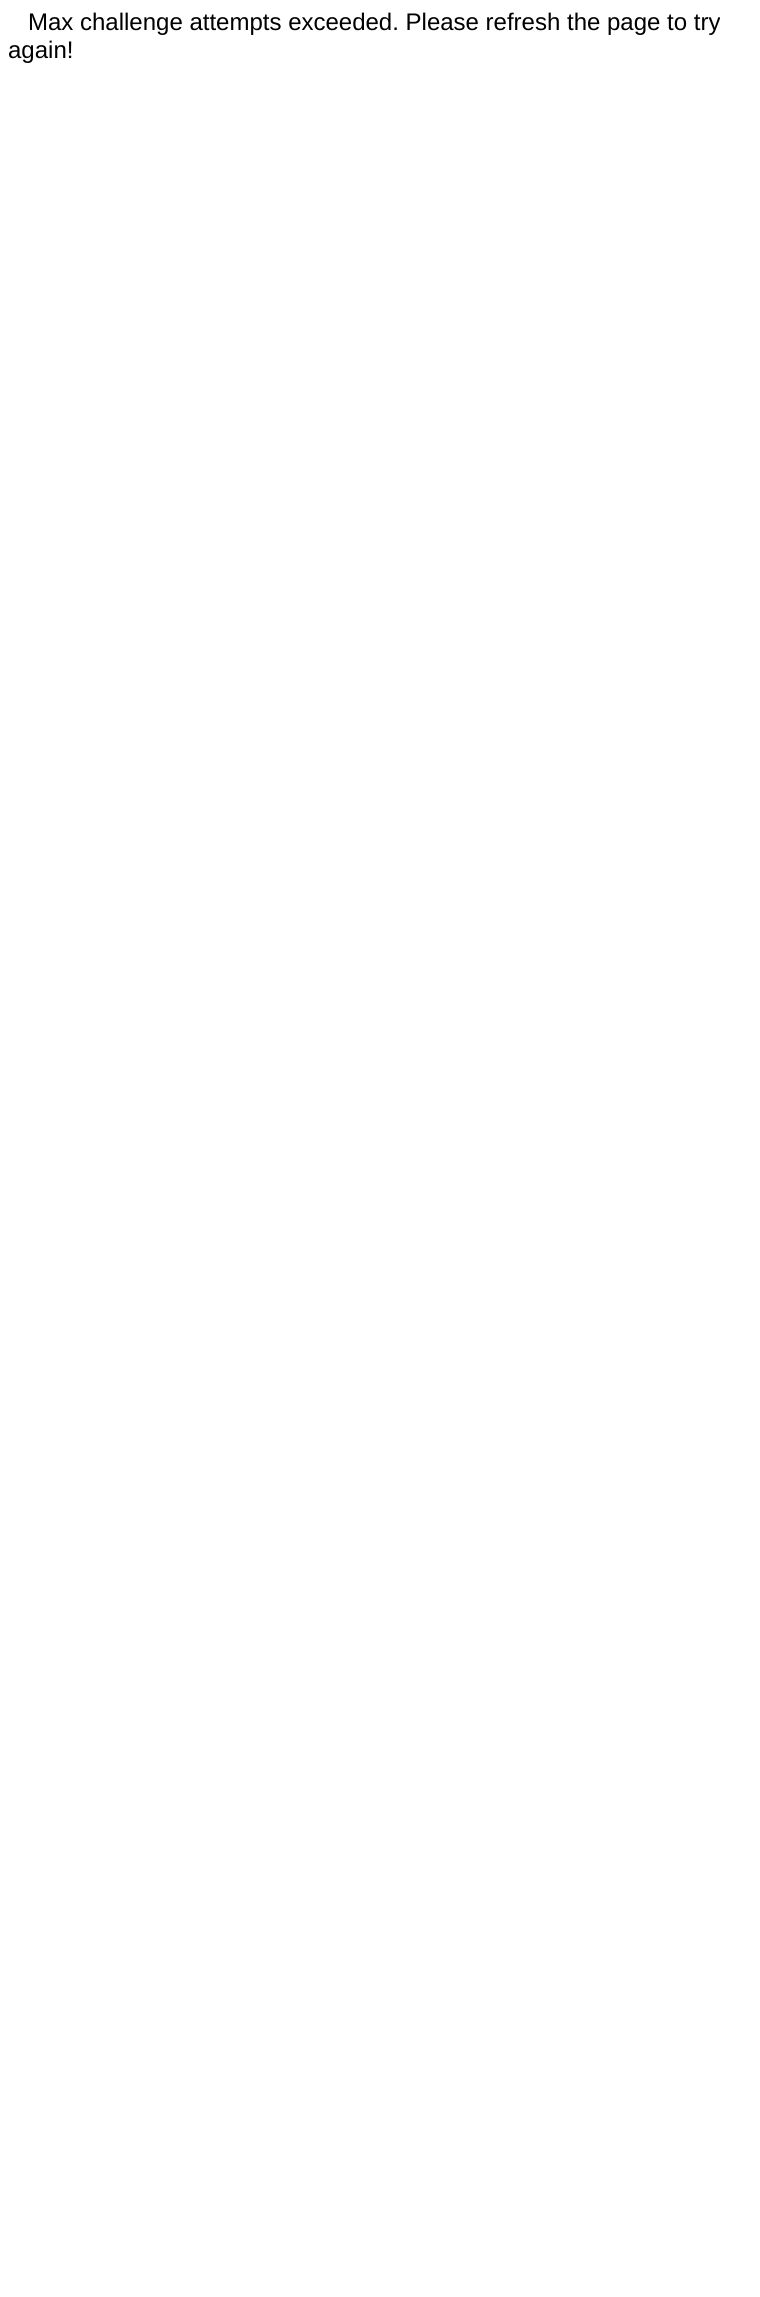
import math
import cairo

surface = cairo.ImageSurface(cairo.Format.RGB24, 760, 2297)
ctx = cairo.Context(surface)
options = cairo.FontOptions()
options.set_hint_metrics(cairo.HintMetrics.OFF)
options.set_hint_style(cairo.HintStyle.NONE)
ctx.set_font_options(options)
ctx.set_miter_limit(4)


def ink(r, g, b):
    ctx.set_source_rgb(r / 255, g / 255, b / 255)


def write(x, y, s, family, size, color, bold=False, italic=False):
    ctx.select_font_face(family, cairo.FontSlant.ITALIC if italic else cairo.FontSlant.NORMAL, cairo.FontWeight.BOLD if bold else cairo.FontWeight.NORMAL)
    ctx.set_font_size(size)
    ink(*color)
    ctx.move_to(x, y)
    ctx.show_text(s)


s1 = dict(family="Liberation Sans", size=24, color=(0, 0, 0))

ink(255, 255, 255)
ctx.paint()
write(28, 30, "Max challenge attempts exceeded. Please refresh the page to try", **s1)
write(8, 58, "again!", **s1)
surface.write_to_png("screenshot.png")
